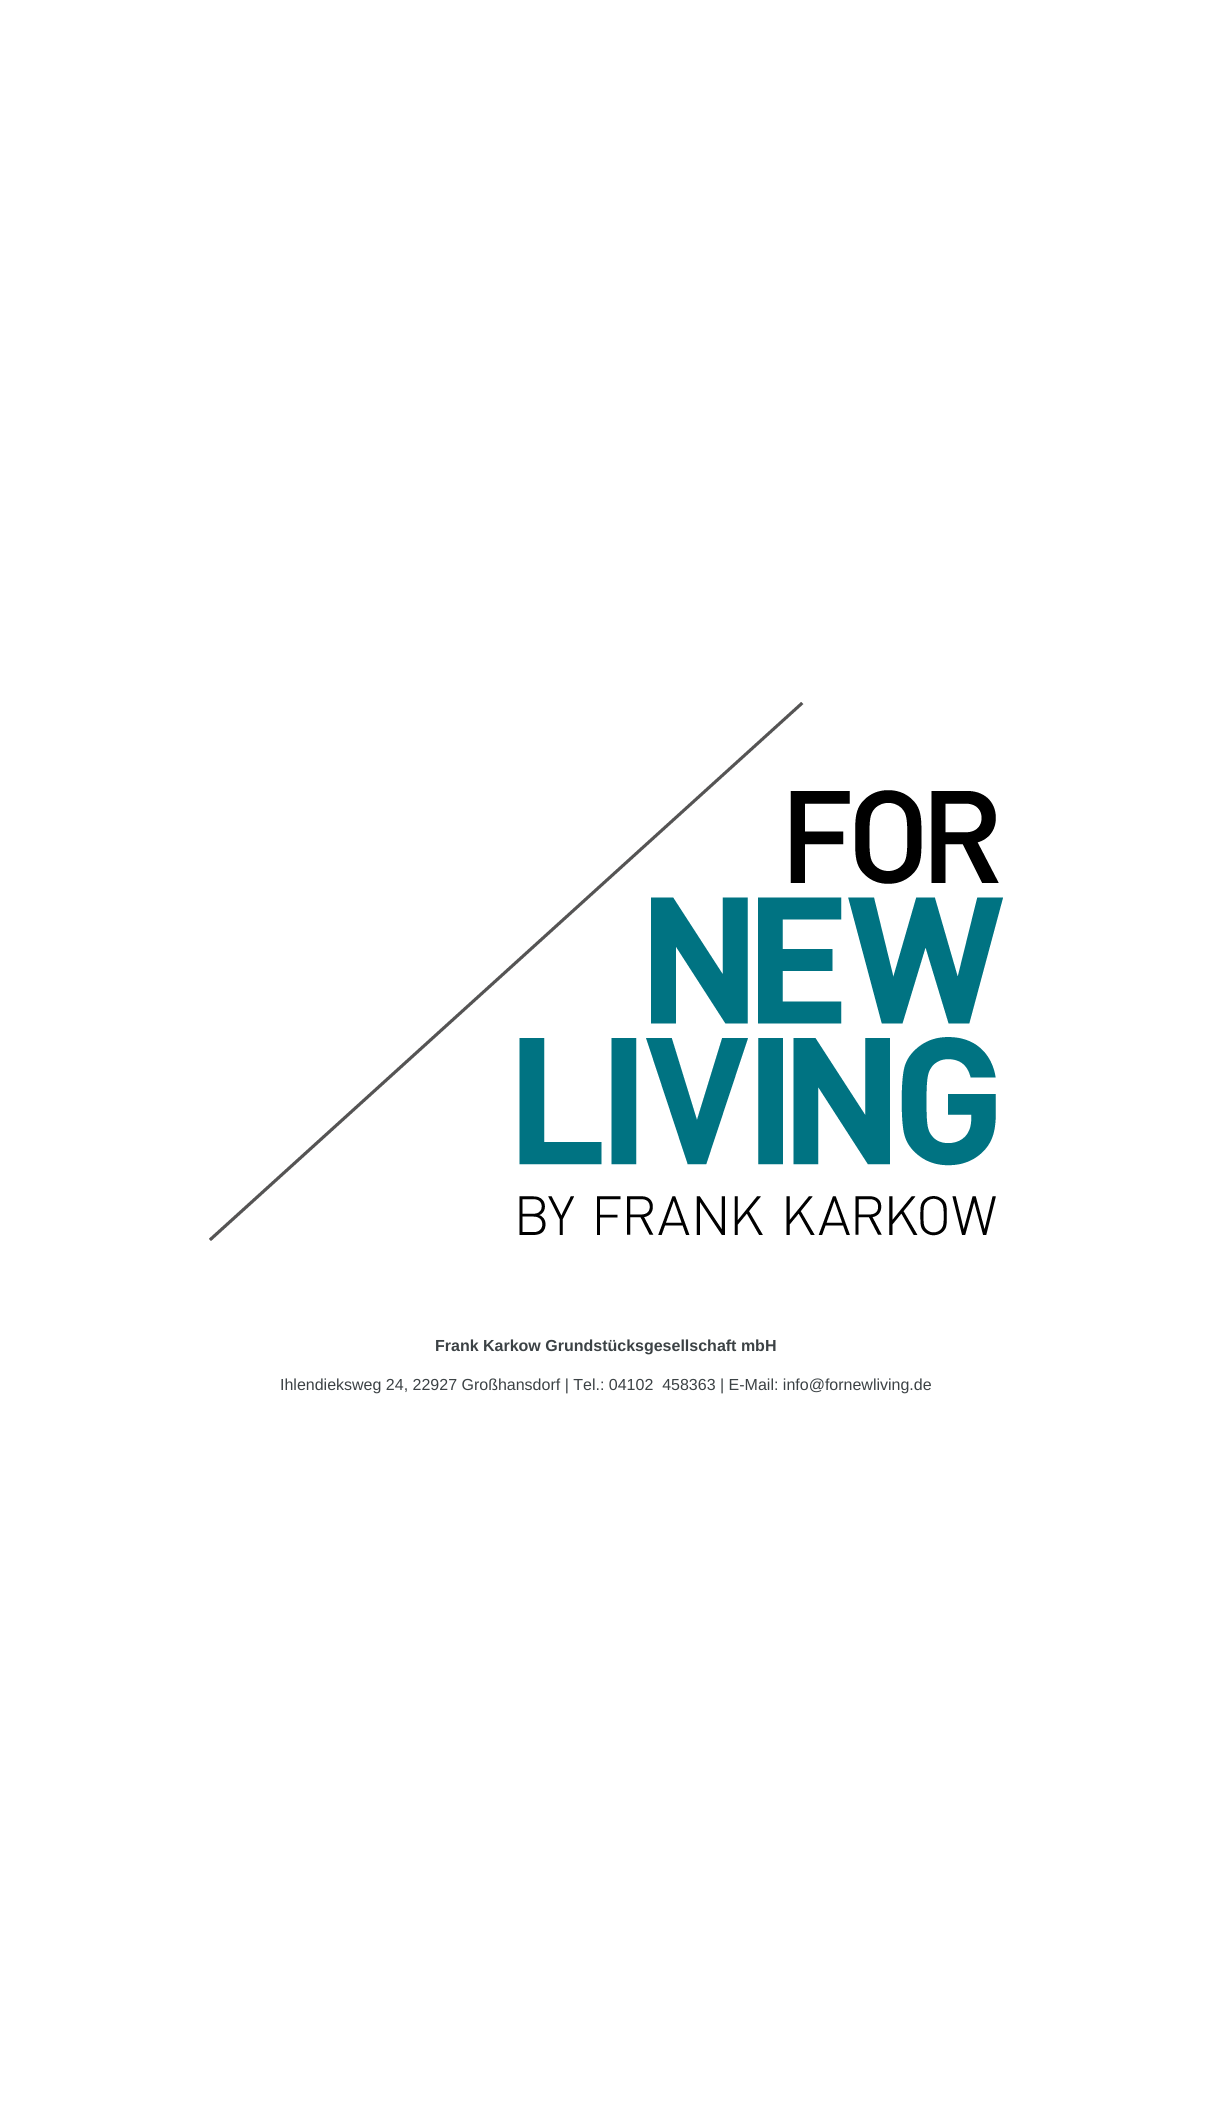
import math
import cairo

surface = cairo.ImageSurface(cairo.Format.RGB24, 1211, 2110)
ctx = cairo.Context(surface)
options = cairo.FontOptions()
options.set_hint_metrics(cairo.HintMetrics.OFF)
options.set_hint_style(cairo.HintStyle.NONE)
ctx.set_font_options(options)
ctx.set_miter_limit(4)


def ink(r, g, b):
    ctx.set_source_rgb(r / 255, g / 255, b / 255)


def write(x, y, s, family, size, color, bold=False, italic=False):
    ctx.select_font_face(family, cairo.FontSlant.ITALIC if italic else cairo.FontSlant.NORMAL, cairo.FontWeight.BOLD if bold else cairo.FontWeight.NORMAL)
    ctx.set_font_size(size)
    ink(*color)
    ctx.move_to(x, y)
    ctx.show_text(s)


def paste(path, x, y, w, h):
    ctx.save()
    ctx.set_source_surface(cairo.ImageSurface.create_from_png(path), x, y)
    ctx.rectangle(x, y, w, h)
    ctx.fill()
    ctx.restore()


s1 = dict(family="Liberation Sans", size=16, color=(60, 66, 69), bold=True)
s2 = dict(family="Liberation Sans", size=16, color=(60, 66, 69))

ink(255, 255, 255)
ctx.paint()
paste("pic1.png", 209, 702, 794, 539)
write(435, 1351, "Frank Karkow Grundstücksgesellschaft mbH", **s1)
write(280, 1390, "Ihlendieksweg 24, 22927 Großhansdorf | Tel.: 04102  458363 | E-Mail: info@fornewliving.de", **s2)
surface.write_to_png("screenshot.png")
